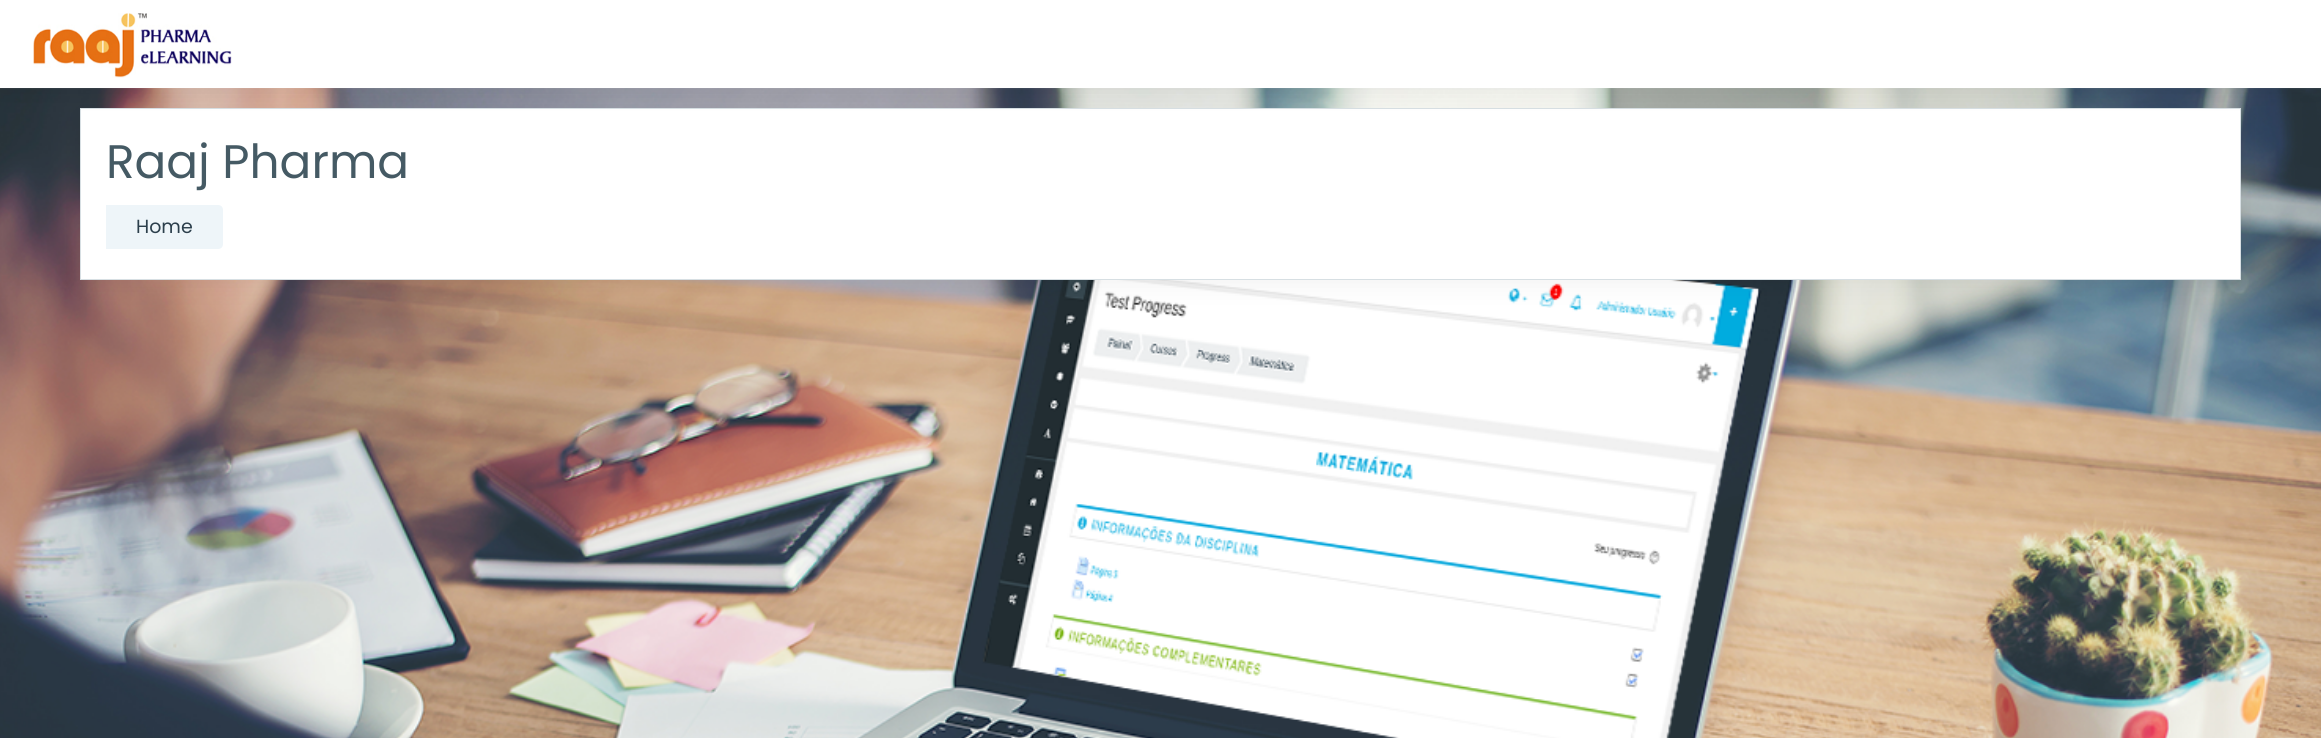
import math
import cairo

surface = cairo.ImageSurface(cairo.Format.RGB24, 2321, 738)
ctx = cairo.Context(surface)
options = cairo.FontOptions()
options.set_hint_metrics(cairo.HintMetrics.OFF)
options.set_hint_style(cairo.HintStyle.NONE)
ctx.set_font_options(options)
ctx.set_miter_limit(4)


def ink(r, g, b):
    ctx.set_source_rgb(r / 255, g / 255, b / 255)


def write(x, y, s, family, size, color, bold=False, italic=False):
    ctx.select_font_face(family, cairo.FontSlant.ITALIC if italic else cairo.FontSlant.NORMAL, cairo.FontWeight.BOLD if bold else cairo.FontWeight.NORMAL)
    ctx.set_font_size(size)
    ink(*color)
    ctx.move_to(x, y)
    ctx.show_text(s)


def block(x, y, w, h, *color):
    ink(*color)
    ctx.rectangle(x, y, w, h)
    ctx.fill()


def round_path(x, y, w, h, r):
    ctx.new_sub_path()
    for i, (u, v) in enumerate([(x + w - r, y + h - r), (x + r, y + h - r), (x + r, y + r), (x + w - r, y + r)]):
        ctx.arc(u, v, r, i * math.pi / 2, (i + 1) * math.pi / 2)
    ctx.close_path()


def blur_box(x, y, w, h, r, blur, alpha):
    ctx.push_group_with_content(cairo.Content.ALPHA)
    ctx.set_operator(cairo.Operator.SOURCE)
    for i in range(15, -16, -2):
        e = blur * i / 6
        if min(w, h) + 2 * e > 0:
            ctx.set_source_rgba(0, 0, 0, alpha * math.erfc((i - 1) / 8.5) / 2)
            round_path(x - e, y - e, w + 2 * e, h + 2 * e, max(0, min(r + e + blur * .6, min(w, h) / 2 + e)))
            ctx.fill()
    ctx.mask(ctx.pop_group())


def paste(path, x, y, w, h):
    ctx.save()
    ctx.set_source_surface(cairo.ImageSurface.create_from_png(path), x, y)
    ctx.rectangle(x, y, w, h)
    ctx.fill()
    ctx.restore()


s1 = dict(family="Poppins", size=47, color=(69, 90, 100))
s2 = dict(family="Poppins", size=19, color=(44, 63, 76))

ink(255, 255, 255)
ctx.paint()
paste("pic2.png", 0, 88, 2321, 650)
ink(0, 0, 0)
blur_box(80, 114, 2161, 172, 0, 12.5, 0.05)
ink(255, 255, 255)
ctx.rectangle(80.5, 108.5, 2160, 171)
ctx.fill_preserve()
ink(215, 223, 227)
ctx.set_line_width(1)
ctx.stroke()
ink(0, 0, 0)
blur_box(0, 0, 2321, 88, 0, 12.5, 0.1)
block(0, 0, 2321, 88, 255, 255, 255)
paste("pic1.png", 33, 13, 199, 65)
write(106, 178, "Raaj Pharma", **s1)
ink(238, 245, 249)
ctx.new_path()
ctx.move_to(106, 205)
ctx.line_to(218, 205)
ctx.curve_to(221, 205, 223, 207, 223, 210)
ctx.line_to(223, 244)
ctx.curve_to(223, 247, 221, 249, 218, 249)
ctx.line_to(106, 249)
ctx.close_path()
ctx.fill()
write(136, 233, "Home", **s2)
surface.write_to_png("screenshot.png")
